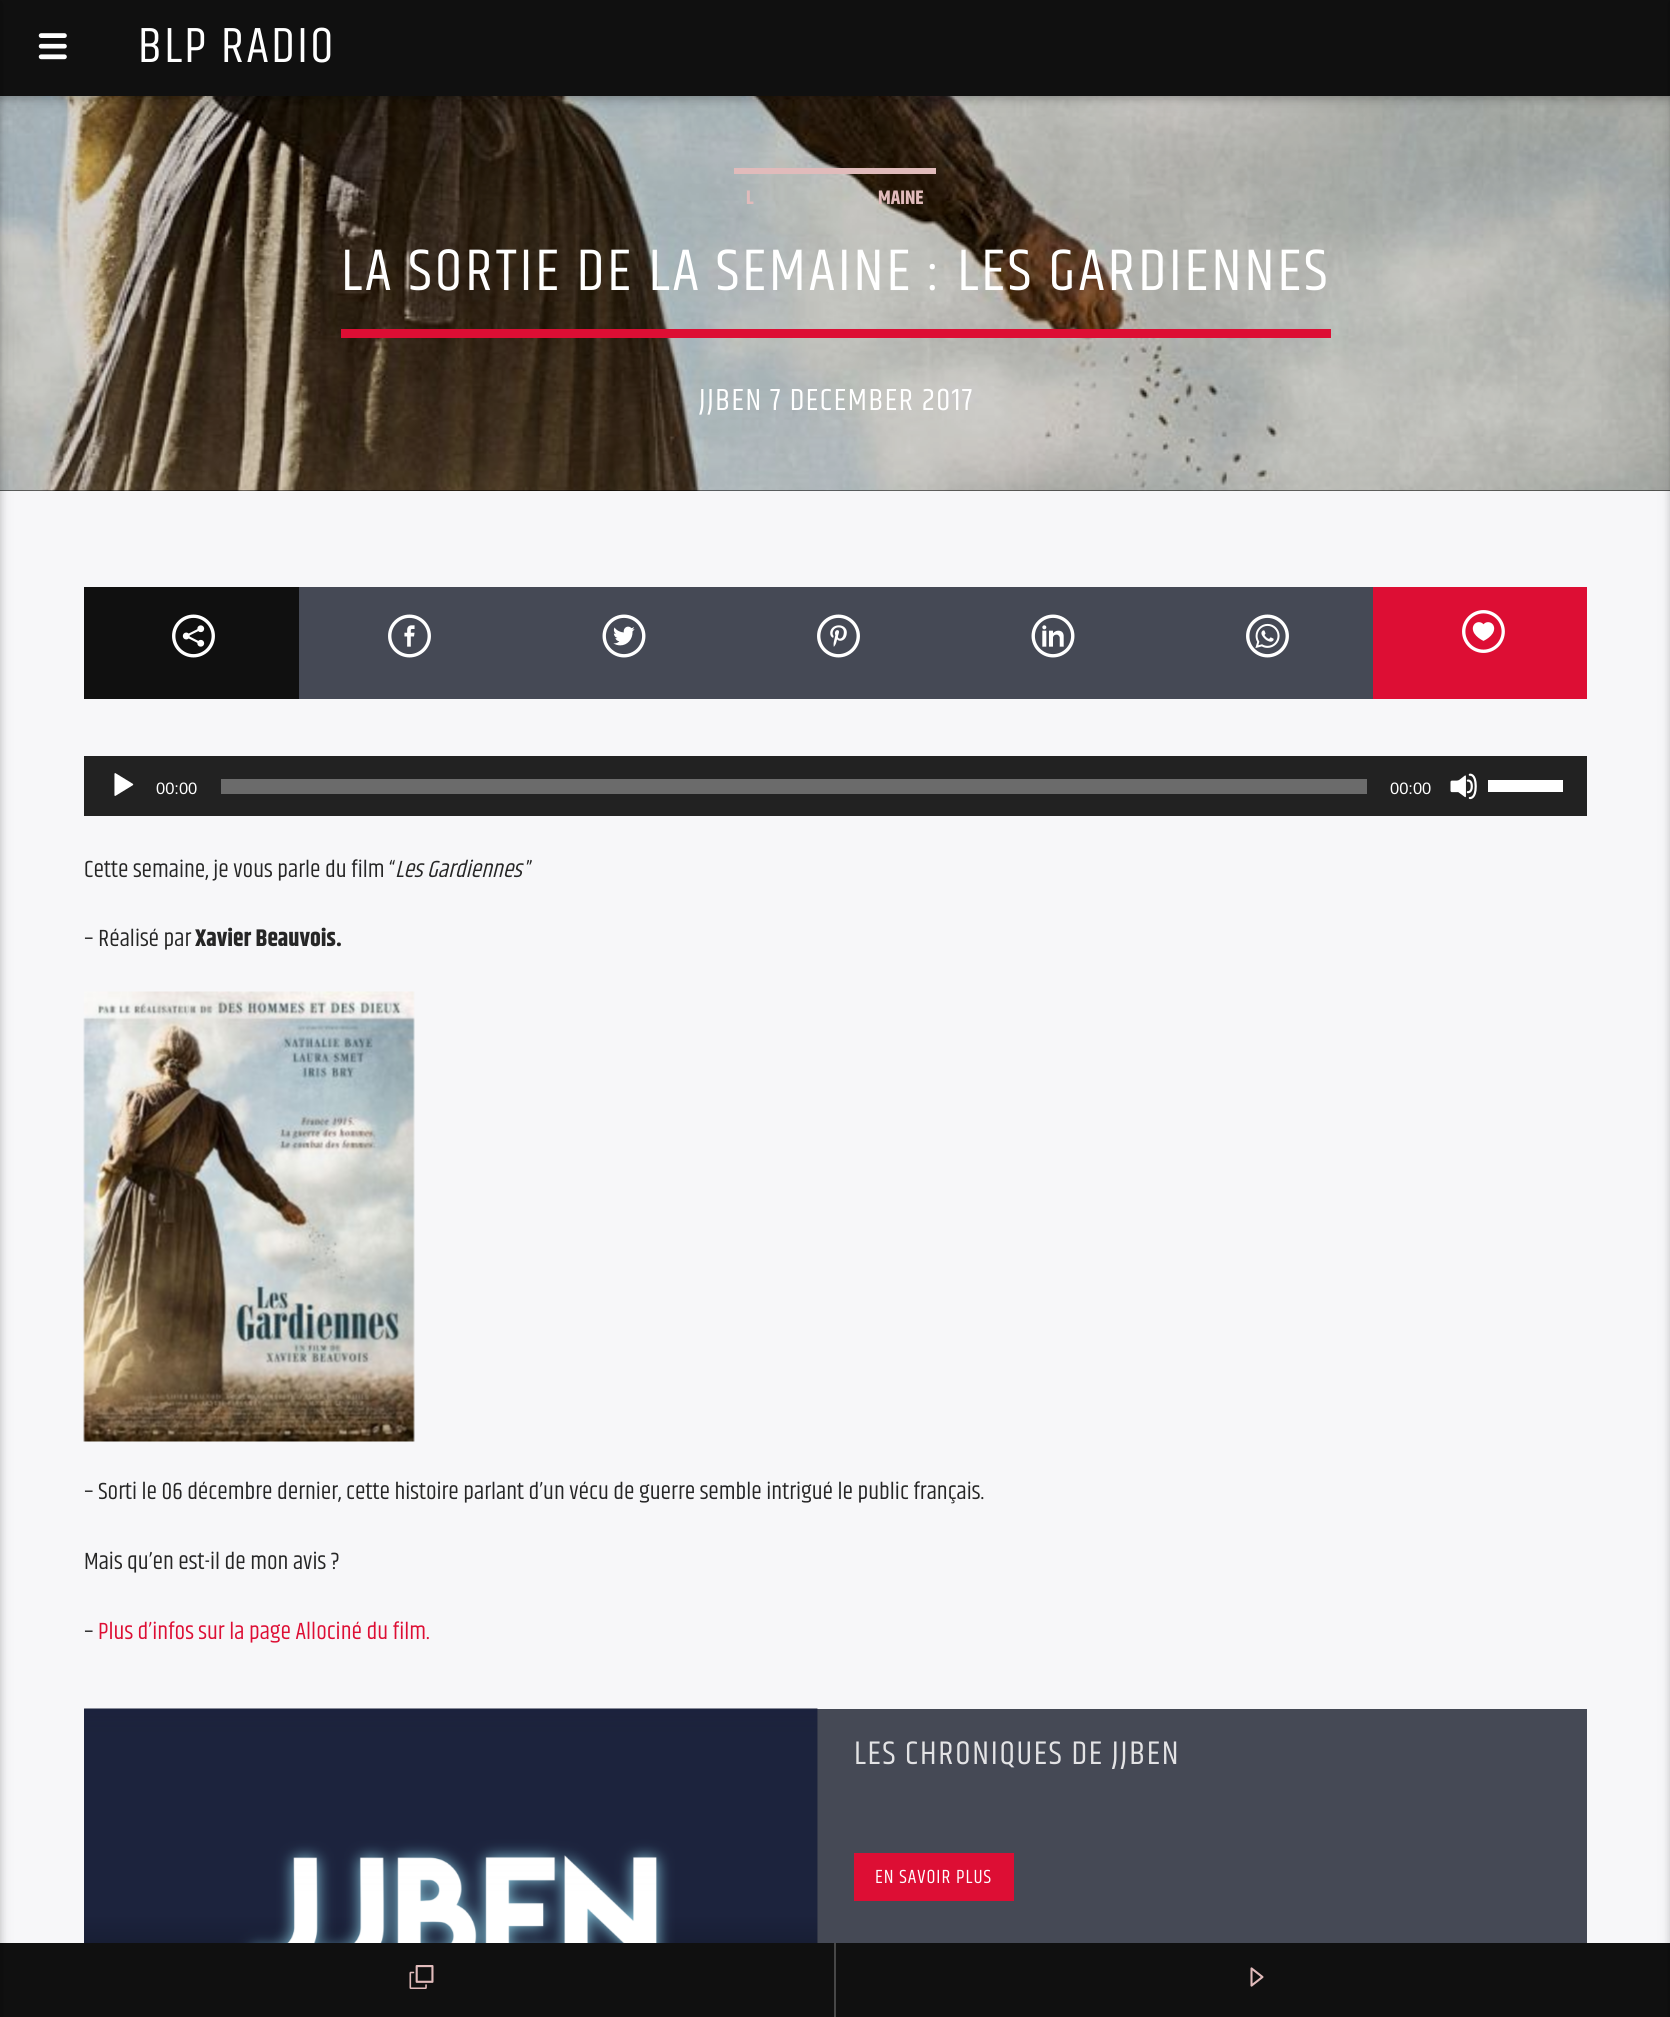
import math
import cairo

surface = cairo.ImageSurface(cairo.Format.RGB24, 1670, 2017)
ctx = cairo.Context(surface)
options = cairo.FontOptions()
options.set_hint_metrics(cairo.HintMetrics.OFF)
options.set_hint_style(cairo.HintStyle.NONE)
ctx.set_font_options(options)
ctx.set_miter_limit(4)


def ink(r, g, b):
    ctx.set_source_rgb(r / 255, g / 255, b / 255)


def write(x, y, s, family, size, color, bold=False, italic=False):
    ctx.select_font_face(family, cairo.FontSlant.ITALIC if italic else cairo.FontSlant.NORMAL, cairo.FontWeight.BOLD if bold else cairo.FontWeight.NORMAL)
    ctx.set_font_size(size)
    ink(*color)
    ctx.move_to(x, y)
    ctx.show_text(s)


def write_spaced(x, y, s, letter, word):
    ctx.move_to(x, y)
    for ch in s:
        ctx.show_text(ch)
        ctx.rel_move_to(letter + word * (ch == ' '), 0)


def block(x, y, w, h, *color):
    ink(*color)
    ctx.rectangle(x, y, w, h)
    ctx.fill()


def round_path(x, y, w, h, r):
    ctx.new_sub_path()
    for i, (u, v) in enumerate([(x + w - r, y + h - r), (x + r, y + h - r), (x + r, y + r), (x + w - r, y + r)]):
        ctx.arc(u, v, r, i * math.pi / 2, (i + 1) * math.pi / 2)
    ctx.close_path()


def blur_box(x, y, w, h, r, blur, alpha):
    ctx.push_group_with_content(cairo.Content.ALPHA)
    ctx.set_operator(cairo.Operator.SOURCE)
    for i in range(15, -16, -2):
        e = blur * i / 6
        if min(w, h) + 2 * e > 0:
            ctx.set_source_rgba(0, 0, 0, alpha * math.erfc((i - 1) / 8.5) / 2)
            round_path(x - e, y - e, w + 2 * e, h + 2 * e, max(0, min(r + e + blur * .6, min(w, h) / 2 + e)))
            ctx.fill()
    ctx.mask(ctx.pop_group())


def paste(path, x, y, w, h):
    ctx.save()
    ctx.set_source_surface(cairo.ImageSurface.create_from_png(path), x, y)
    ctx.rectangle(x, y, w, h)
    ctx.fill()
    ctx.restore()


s1 = dict(family="Khand", size=19.5, color=(225, 187, 187), bold=True)
s2 = dict(family="Liberation Sans", size=16.5, color=(255, 255, 255))
s3 = dict(family="Khand", size=24, color=(38, 38, 38))
s4 = dict(family="Khand", size=24, color=(38, 38, 38), italic=True)
s5 = dict(family="Khand", size=24, color=(38, 38, 38), bold=True)
s6 = dict(family="Khand", size=24, color=(221, 14, 52))

ink(247, 247, 249)
ctx.paint()
block(0, 96, 1670, 395, 0, 0, 0)
paste("pic2.png", 0, 96, 1670, 395)
ink(0, 0, 0)
blur_box(0, 3, 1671, 96, 0, 7.5, 0.12)
blur_box(0, 3, 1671, 96, 0, 4, 0.16)
block(0, 0, 1670, 96, 16, 16, 16)
block(0, 1943, 1670, 74, 16, 16, 16)
ink(0, 0, 0)
blur_box(-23, 3, 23, 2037, 0, 7.5, 0.12)
blur_box(-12, 3, 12, 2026, 0, 4, 0.16)
paste("pic1.png", 38, 33, 29, 27)
ctx.select_font_face("Khand")
ctx.set_font_size(50.5)
ink(255, 255, 255)
write_spaced(138, 62, "BLP RADIO", 2.5, 0)
ink(0, 0, 0)
blur_box(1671, 3, 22, 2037, 0, 7.5, 0.12)
blur_box(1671, 3, 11, 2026, 0, 4, 0.16)
block(734, 168, 202, 6, 225, 187, 187)
write(746, 204, "L", **s1)
write(878, 204, "MAINE", **s1)
block(341, 329, 990, 9, 221, 14, 52)
ctx.select_font_face("Khand")
ctx.set_font_size(60)
ink(255, 255, 255)
write_spaced(341, 290, "LA SORTIE DE LA SEMAINE : LES GARDIENNES", 3, 0)
ctx.set_font_size(31.25)
write_spaced(699, 410, "JJBEN 7 DECEMBER 2017", 1.6, 0)
block(299, 587, 1074, 112, 69, 73, 85)
block(84, 587, 215, 112, 16, 16, 16)
paste("pic3.png", 172, 614, 43, 44)
paste("pic4.png", 388, 614, 43, 44)
paste("pic5.png", 602, 614, 44, 44)
paste("pic6.png", 817, 614, 43, 44)
paste("pic7.png", 1031, 614, 44, 44)
paste("pic8.png", 1246, 614, 43, 44)
block(1373, 587, 214, 112, 221, 14, 52)
paste("pic9.png", 1462, 610, 43, 43)
block(84, 756, 1503, 60, 34, 34, 34)
paste("pic10.png", 114, 773, 20, 23)
write(156, 794, "00:00", **s2)
block(221, 779, 1146, 15, 107, 107, 107)
write(1390, 794, "00:00", **s2)
paste("pic11.png", 1450, 773, 27, 27)
block(1488, 780, 75, 12, 255, 255, 255)
write(84, 877, "Cette semaine, je vous parle du film “", **s3)
write(395, 877, "Les Gardiennes", **s4)
write(526, 877, "”", **s3)
write(84, 946, "– Réalisé par", **s3)
write(195, 946, "Xavier Beauvois.", **s5)
paste("pic12.png", 83, 991, 332, 451)
write(84, 1499, "– Sorti le 06 décembre dernier, cette histoire parlant d’un vécu de guerre semble intrigué le public français.", **s3)
write(84, 1569, "Mais qu’en est-il de mon avis ?", **s3)
write(84, 1639, "–", **s3)
write(98, 1639, "Plus d’infos sur la page Allociné du film.", **s6)
block(84, 1709, 1503, 234, 69, 73, 85)
paste("pic13.png", 84, 1708, 734, 235)
ctx.set_font_size(33.5)
ink(227, 227, 229)
write_spaced(854, 1764, "LES CHRONIQUES DE JJBEN", 1.7, 0)
block(854, 1853, 160, 48, 221, 14, 52)
ctx.set_font_size(19.5)
ink(255, 255, 255)
write_spaced(875, 1883, "EN SAVOIR PLUS", 1, 0)
block(834, 1943, 2, 74, 71, 71, 71)
paste("pic14.png", 409, 1965, 25, 24)
paste("pic15.png", 1250, 1967, 14, 20)
surface.write_to_png("screenshot.png")
